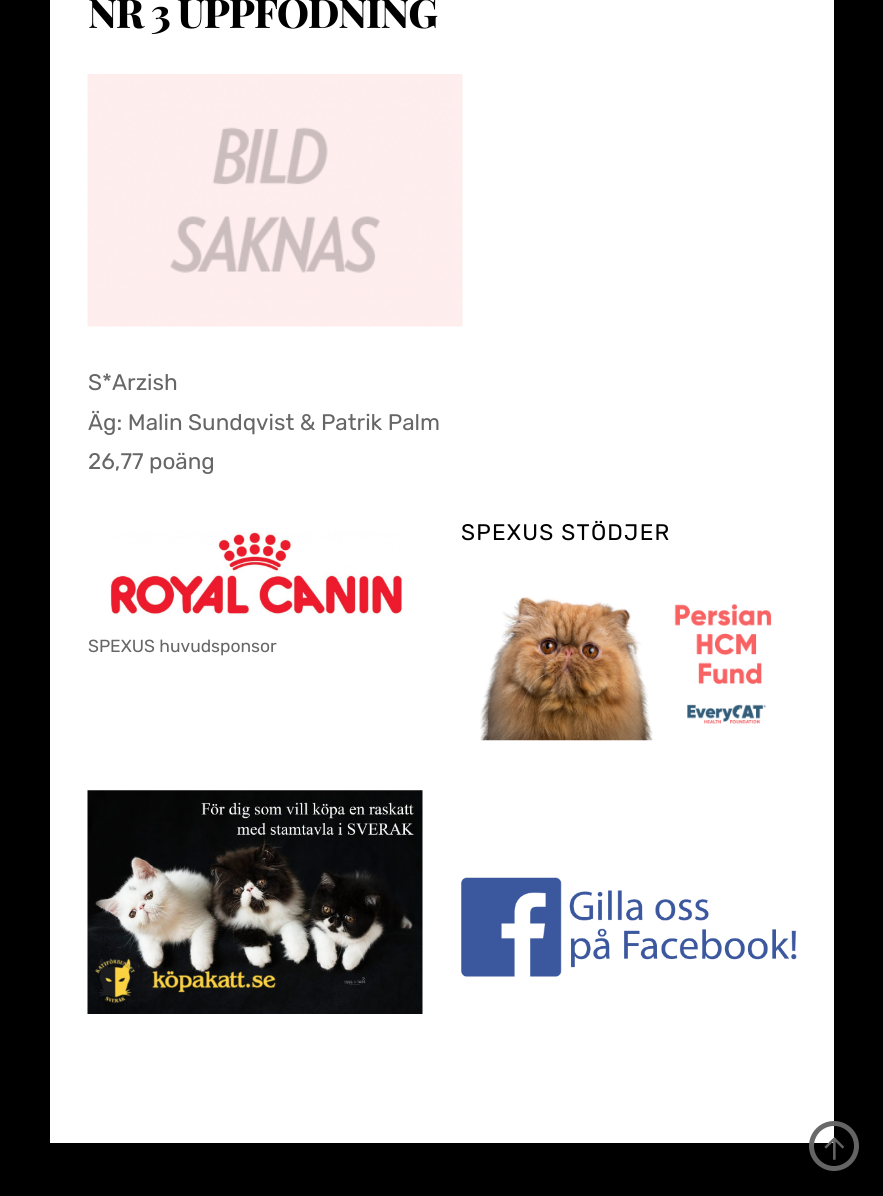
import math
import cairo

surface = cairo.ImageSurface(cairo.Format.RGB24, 883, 1196)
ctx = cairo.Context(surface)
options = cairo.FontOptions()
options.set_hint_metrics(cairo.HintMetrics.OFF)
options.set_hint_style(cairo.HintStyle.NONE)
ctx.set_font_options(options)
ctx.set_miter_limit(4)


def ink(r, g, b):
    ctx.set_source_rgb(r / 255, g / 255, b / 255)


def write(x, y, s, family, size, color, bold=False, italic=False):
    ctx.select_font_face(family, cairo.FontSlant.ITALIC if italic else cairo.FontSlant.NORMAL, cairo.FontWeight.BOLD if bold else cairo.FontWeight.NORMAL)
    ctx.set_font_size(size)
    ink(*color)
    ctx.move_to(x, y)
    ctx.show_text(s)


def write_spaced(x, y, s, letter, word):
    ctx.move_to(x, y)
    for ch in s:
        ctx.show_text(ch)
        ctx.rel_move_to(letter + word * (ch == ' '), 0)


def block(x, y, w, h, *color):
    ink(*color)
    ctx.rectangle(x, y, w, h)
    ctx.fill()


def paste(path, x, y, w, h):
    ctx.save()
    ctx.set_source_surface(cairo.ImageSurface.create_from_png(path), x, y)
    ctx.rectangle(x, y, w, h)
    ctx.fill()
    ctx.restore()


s1 = dict(family="Rubik Light", size=22.5, color=(102, 102, 102))
s2 = dict(family="Rubik Light", size=17.5, color=(102, 102, 102))

ink(0, 0, 0)
ctx.paint()
block(50, 0, 784, 1143, 255, 255, 255)
ctx.select_font_face("Playfair Display ExtraBold")
ctx.set_font_size(40)
ink(0, 0, 0)
write_spaced(88, 28, "NR 3 UPPFÖDNING", -1.25, 0)
paste("pic1.png", 87, 74, 376, 253)
write(88, 390, "S*Arzish", **s1)
write(88, 430, "Äg: Malin Sundqvist & Patrik Palm", **s1)
write(88, 469, "26,77 poäng", **s1)
ink(0, 0, 0)
write_spaced(461, 540, "SPEXUS STÖDJER", 1.25, 0)
paste("pic2.png", 480, 596, 292, 145)
paste("pic3.png", 109, 531, 293, 84)
write(88, 652, "SPEXUS huvudsponsor", **s2)
paste("pic4.png", 87, 790, 336, 224)
paste("pic5.png", 461, 877, 336, 100)
ctx.arc(834, 1146, 22.5, 0, 2 * math.pi)
ctx.set_source_rgba(0.4, 0.4, 0.4, 0.98)
ctx.set_line_width(5)
ctx.stroke()
paste("pic6.png", 824, 1137, 21, 23)
surface.write_to_png("screenshot.png")
